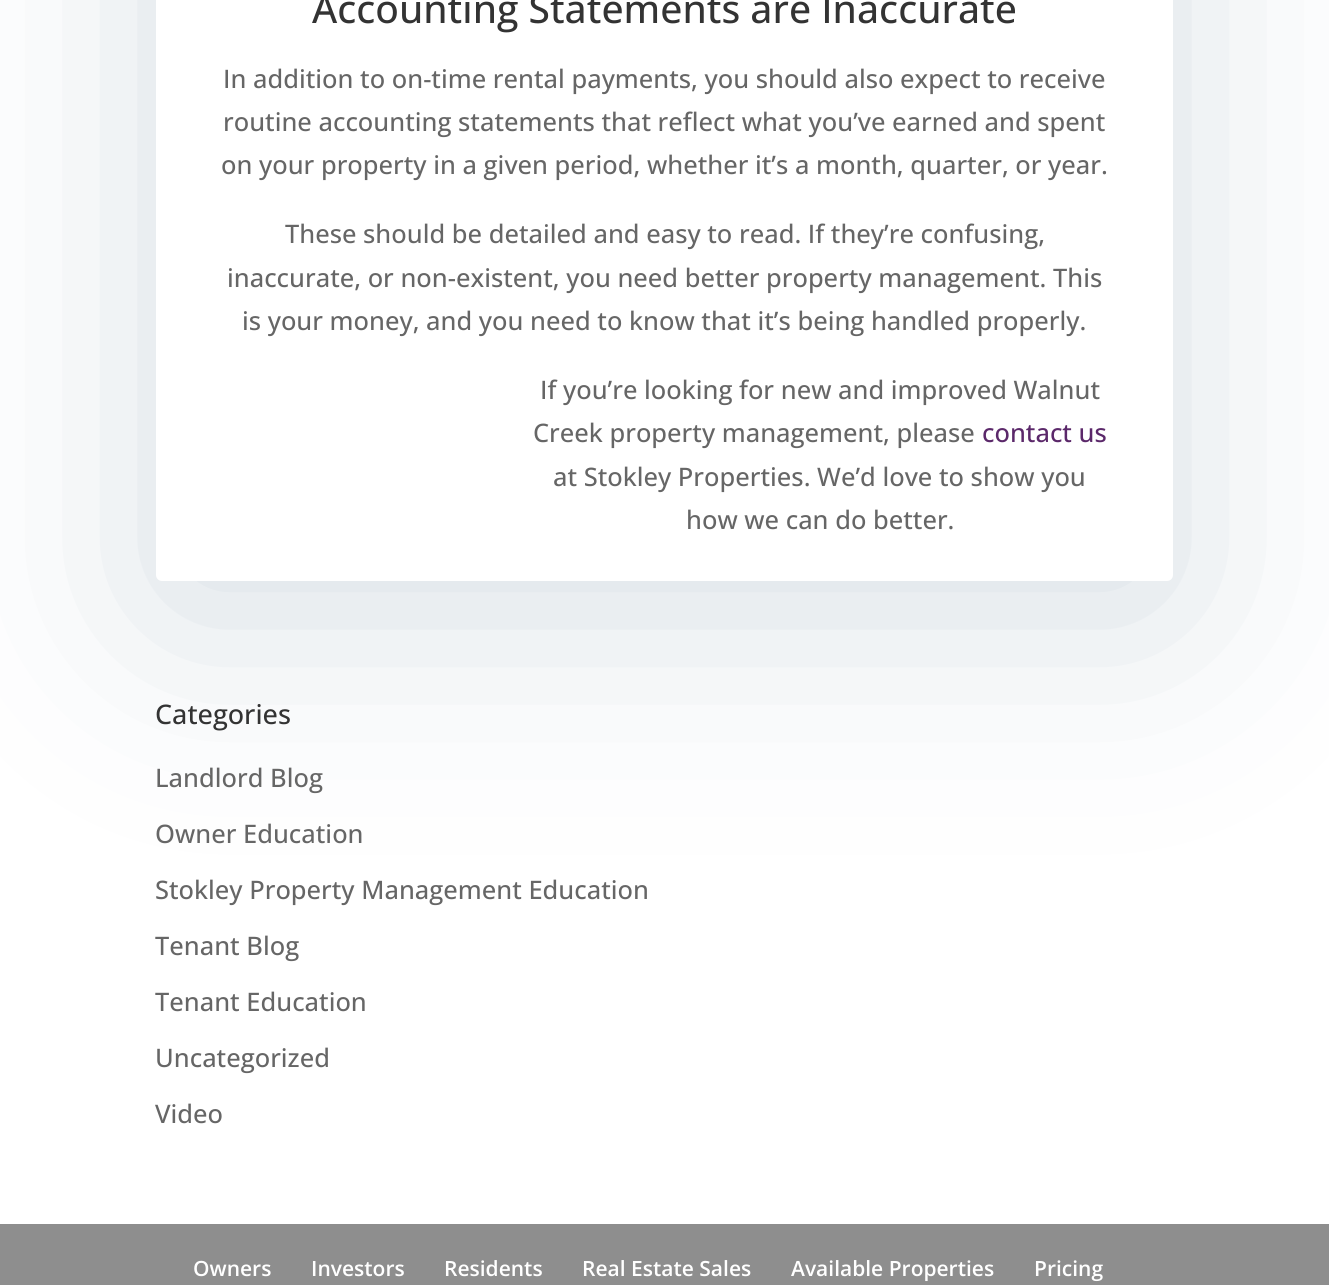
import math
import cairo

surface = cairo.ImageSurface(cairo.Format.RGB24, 1329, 1285)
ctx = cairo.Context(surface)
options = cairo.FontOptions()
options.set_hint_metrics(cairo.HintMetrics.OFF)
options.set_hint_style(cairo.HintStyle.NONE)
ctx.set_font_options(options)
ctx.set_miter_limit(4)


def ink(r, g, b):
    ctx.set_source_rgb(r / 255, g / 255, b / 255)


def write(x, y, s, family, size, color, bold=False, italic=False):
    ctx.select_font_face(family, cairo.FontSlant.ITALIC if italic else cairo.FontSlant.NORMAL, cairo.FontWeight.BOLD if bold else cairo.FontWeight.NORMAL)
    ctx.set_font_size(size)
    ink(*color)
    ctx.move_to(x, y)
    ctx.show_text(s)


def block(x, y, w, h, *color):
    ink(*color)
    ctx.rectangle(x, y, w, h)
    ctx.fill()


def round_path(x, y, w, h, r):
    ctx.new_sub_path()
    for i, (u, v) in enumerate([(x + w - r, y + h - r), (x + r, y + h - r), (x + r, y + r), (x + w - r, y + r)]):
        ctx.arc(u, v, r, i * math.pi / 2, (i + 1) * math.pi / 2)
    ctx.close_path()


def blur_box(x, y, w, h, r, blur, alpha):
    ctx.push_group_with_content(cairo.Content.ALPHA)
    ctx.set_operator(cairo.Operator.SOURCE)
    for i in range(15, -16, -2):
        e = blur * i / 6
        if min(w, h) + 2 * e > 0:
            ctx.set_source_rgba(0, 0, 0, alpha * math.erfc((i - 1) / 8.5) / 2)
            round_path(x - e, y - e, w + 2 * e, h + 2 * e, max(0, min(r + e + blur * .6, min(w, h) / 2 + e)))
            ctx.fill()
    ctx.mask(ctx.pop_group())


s1 = dict(family="Open Sans Medium", size=39, color=(51, 51, 51))
s2 = dict(family="Open Sans Medium", size=25.5, color=(102, 102, 102))
s3 = dict(family="Open Sans Medium", size=25.5, color=(91, 40, 106))
s4 = dict(family="Open Sans Medium", size=27, color=(51, 51, 51))
s5 = dict(family="Open Sans SemiBold", size=21, color=(255, 255, 255))

ink(255, 255, 255)
ctx.paint()
ink(214, 222, 228)
blur_box(156, -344, 1017, 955, 6, 112.5, 1)
ink(255, 255, 255)
round_path(156, -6, 1017, 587, 6)
ctx.fill()
write(312, 23, "Accounting Statements are Inaccurate", **s1)
write(223, 88, "In addition to on-time rental payments, you should also expect to receive", **s2)
write(223, 131, "routine accounting statements that reflect what you’ve earned and spent", **s2)
write(221, 174, "on your property in a given period, whether it’s a month, quarter, or year.", **s2)
write(285, 243, "These should be detailed and easy to read. If they’re confusing,", **s2)
write(227, 287, "inaccurate, or non-existent, you need better property management. This", **s2)
write(242, 330, "is your money, and you need to know that it’s being handled properly.", **s2)
write(540, 399, "If you’re looking for new and improved Walnut", **s2)
write(533, 442, "Creek property management, please", **s2)
write(982, 442, "contact us", **s3)
write(553, 486, "at Stokley Properties. We’d love to show you", **s2)
write(686, 529, "how we can do better.", **s2)
write(155, 724, "Categories", **s4)
write(155, 787, "Landlord Blog", **s2)
write(155, 843, "Owner Education", **s2)
write(155, 899, "Stokley Property Management Education", **s2)
write(155, 955, "Tenant Blog", **s2)
write(155, 1011, "Tenant Education", **s2)
write(155, 1067, "Uncategorized", **s2)
write(155, 1123, "Video", **s2)
block(0, 1224, 1329, 61, 142, 142, 142)
write(193, 1276, "Owners", **s5)
write(311, 1276, "Investors", **s5)
write(444, 1276, "Residents", **s5)
write(582, 1276, "Real Estate Sales", **s5)
write(791, 1276, "Available Properties", **s5)
write(1034, 1276, "Pricing", **s5)
surface.write_to_png("screenshot.png")
